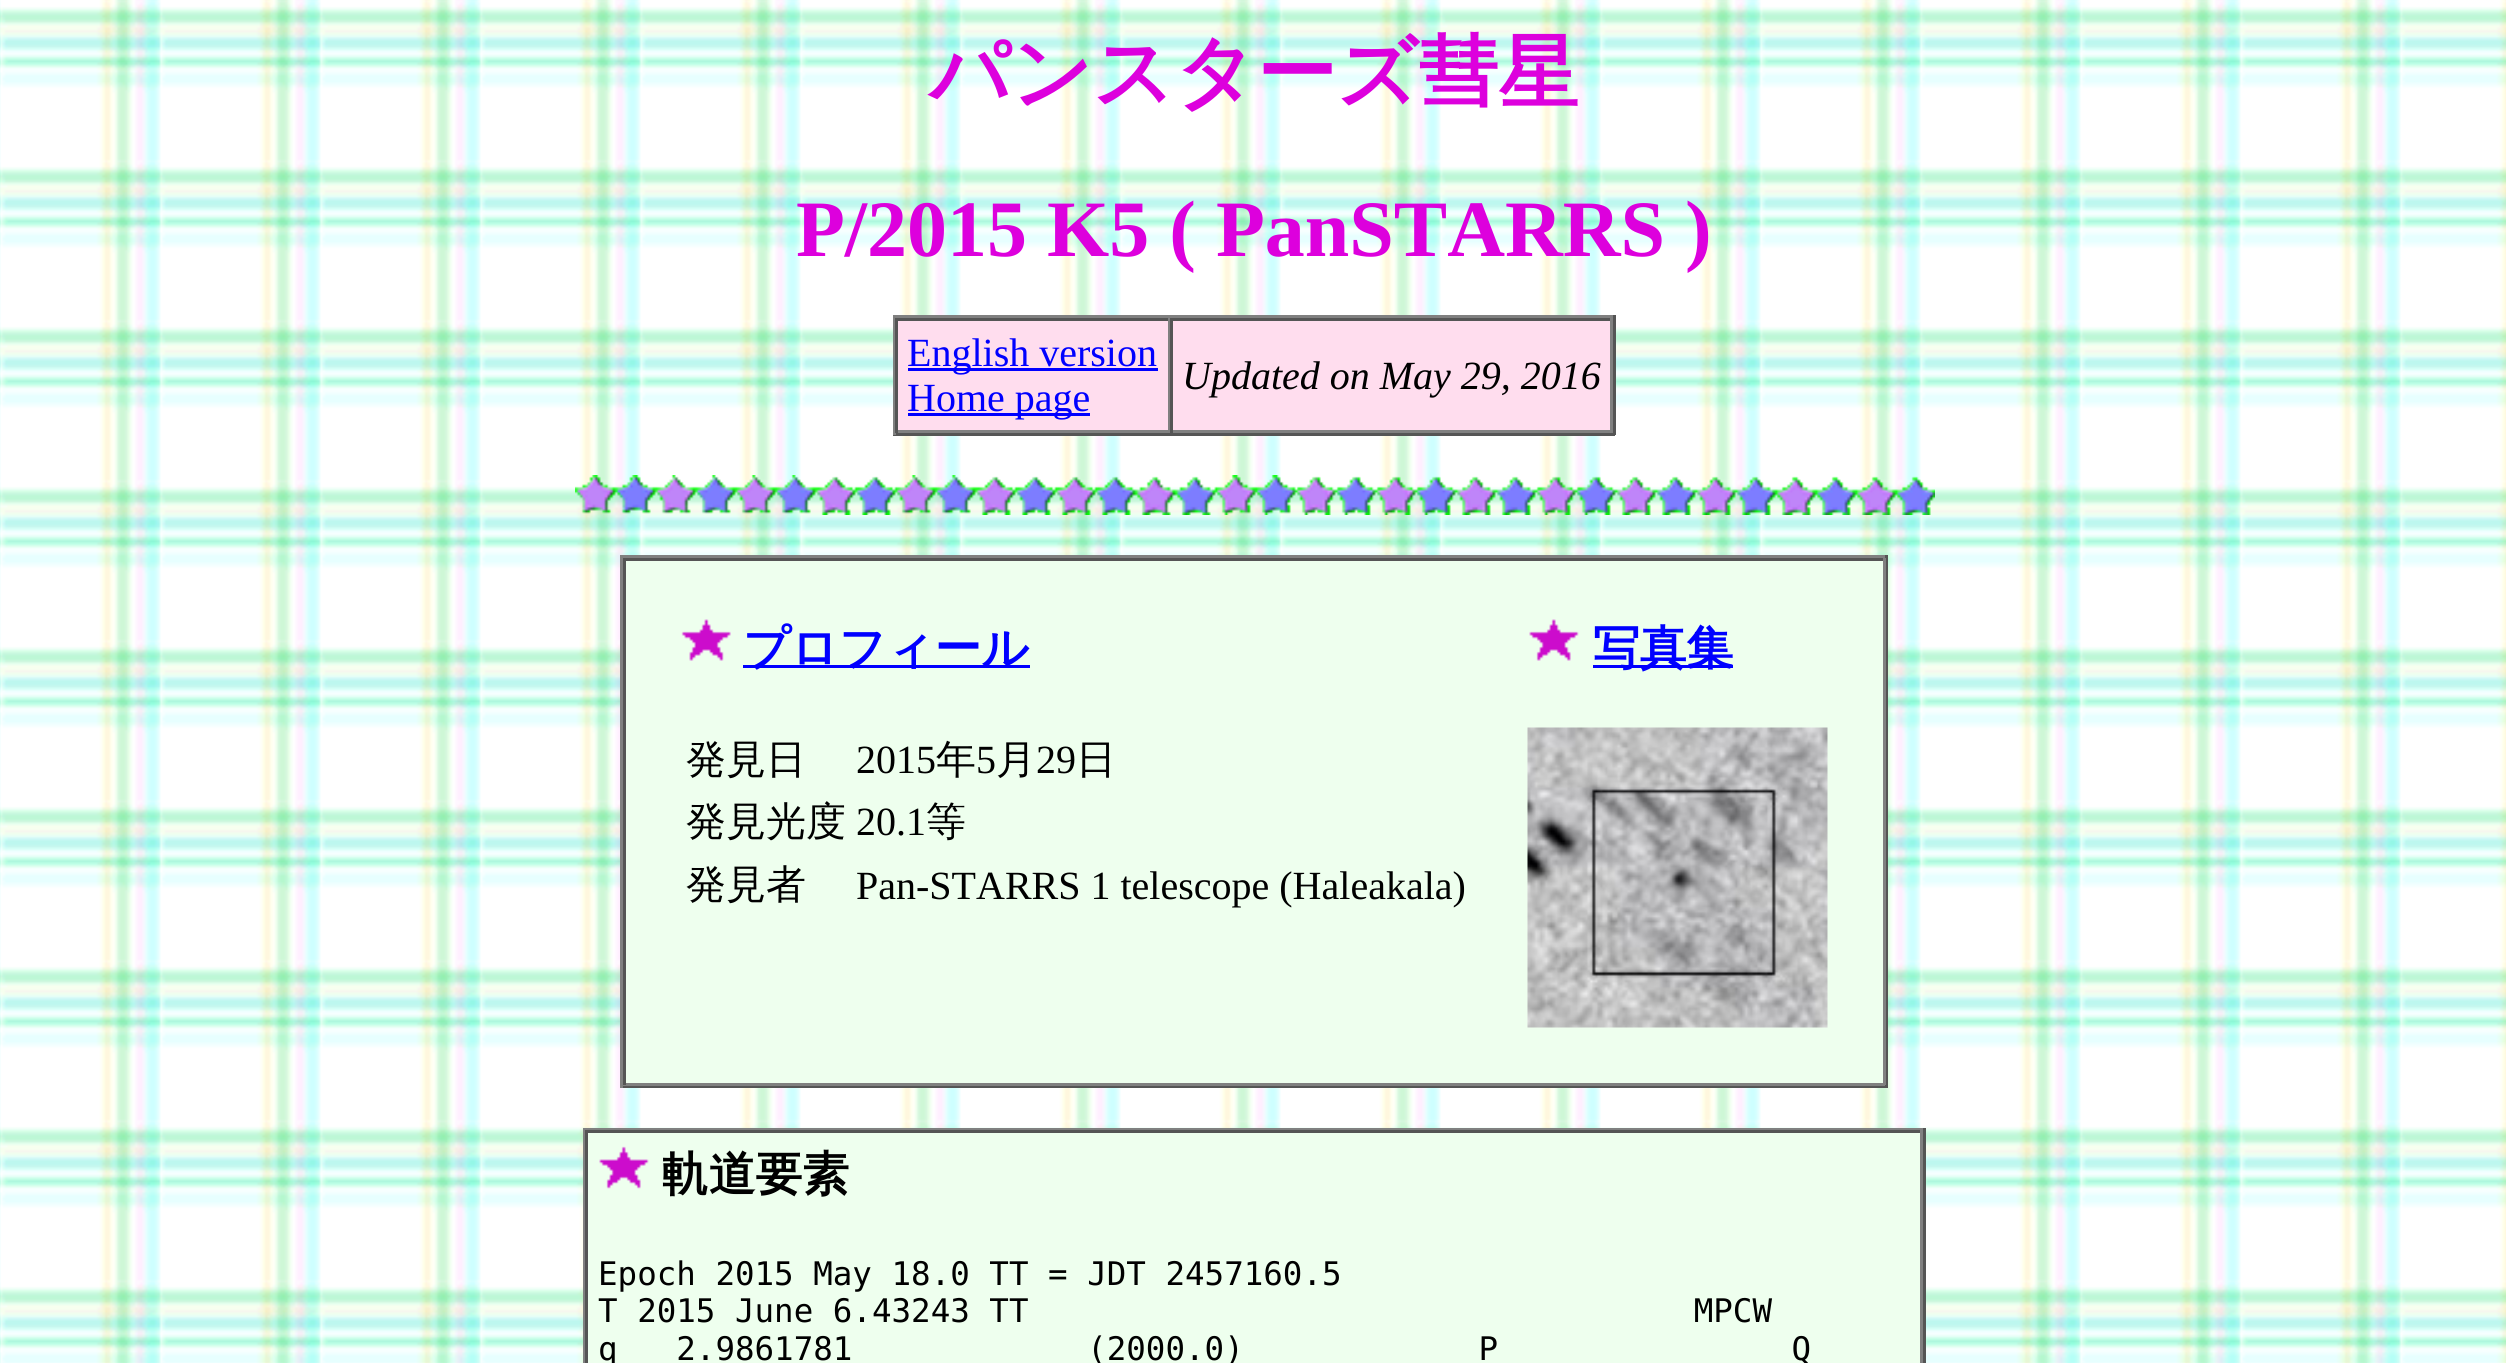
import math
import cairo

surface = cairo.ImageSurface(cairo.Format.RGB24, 2506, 1363)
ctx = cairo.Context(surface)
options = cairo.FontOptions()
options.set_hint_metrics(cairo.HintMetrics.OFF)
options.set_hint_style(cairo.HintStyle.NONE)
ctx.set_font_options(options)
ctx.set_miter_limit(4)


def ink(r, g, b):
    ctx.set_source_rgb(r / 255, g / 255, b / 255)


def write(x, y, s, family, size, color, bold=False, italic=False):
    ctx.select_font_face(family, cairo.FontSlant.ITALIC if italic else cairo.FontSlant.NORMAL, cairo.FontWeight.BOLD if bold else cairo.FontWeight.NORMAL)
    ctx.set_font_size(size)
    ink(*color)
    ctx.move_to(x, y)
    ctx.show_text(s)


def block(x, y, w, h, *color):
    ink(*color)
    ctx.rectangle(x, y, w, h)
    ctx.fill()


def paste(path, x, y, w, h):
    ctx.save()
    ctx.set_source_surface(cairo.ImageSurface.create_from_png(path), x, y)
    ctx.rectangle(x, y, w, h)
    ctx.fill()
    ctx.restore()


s1 = dict(family="WenQuanYi Zen Hei", size=80, color=(221, 0, 221), bold=True)
s2 = dict(family="Liberation Serif", size=80, color=(221, 0, 221), bold=True)
s3 = dict(family="Liberation Serif", size=40, color=(0, 0, 255))
s4 = dict(family="Liberation Serif", size=40, color=(0, 0, 0), italic=True)
s5 = dict(family="WenQuanYi Zen Hei", size=46.75, color=(0, 0, 255), bold=True)
s6 = dict(family="WenQuanYi Zen Hei Medium", size=40, color=(0, 0, 0))
s7 = dict(family="Liberation Serif", size=40, color=(0, 0, 0))
s8 = dict(family="WenQuanYi Zen Hei", size=46.75, color=(0, 0, 0), bold=True)
s9 = dict(family="DejaVu Sans Mono", size=32.5, color=(0, 0, 0))

ink(255, 255, 255)
ctx.paint()
paste("pic1.png", 0, 0, 2506, 1363)
write(929, 100, "パンスターズ彗星", **s1)
write(796, 256, "P/2015 K5 ( PanSTARRS )", **s2)
block(898, 321, 712, 109, 255, 221, 238)
block(893, 315, 722, 3, 128, 128, 128)
block(1613, 315, 3, 120, 85, 85, 85)
block(893, 433, 722, 3, 85, 85, 85)
block(893, 315, 3, 120, 128, 128, 128)
block(895, 318, 718, 3, 85, 85, 85)
block(1168, 318, 2, 115, 128, 128, 128)
block(895, 430, 275, 3, 128, 128, 128)
block(895, 318, 3, 115, 85, 85, 85)
block(908, 368, 250, 3, 0, 0, 255)
write(907, 366, "English version", **s3)
block(908, 413, 182, 3, 0, 0, 255)
write(907, 411, "Home page", **s3)
block(1610, 318, 3, 115, 128, 128, 128)
block(1170, 430, 443, 3, 128, 128, 128)
block(1170, 318, 3, 115, 85, 85, 85)
write(1182, 389, "Updated on May 29, 2016", **s4)
paste("pic2.png", 575, 475, 1360, 40)
block(626, 561, 1257, 522, 238, 255, 238)
block(620, 555, 1268, 3, 128, 128, 128)
block(1885, 555, 3, 533, 85, 85, 85)
block(620, 1085, 1268, 3, 85, 85, 85)
block(620, 555, 3, 533, 128, 128, 128)
block(623, 558, 1262, 3, 85, 85, 85)
block(1883, 558, 3, 527, 128, 128, 128)
block(623, 1083, 1262, 3, 128, 128, 128)
block(623, 558, 3, 527, 85, 85, 85)
paste("pic3.png", 681, 619, 50, 42)
block(743, 665, 287, 3, 0, 0, 255)
write(743, 664, "プロフィール", **s5)
write(686, 773, "発見日", **s6)
write(856, 773, "2015", **s7)
write(936, 773, "年", **s6)
write(976, 773, "5", **s7)
write(996, 773, "月", **s6)
write(1036, 773, "29", **s7)
write(1076, 773, "日", **s6)
write(686, 835, "発見光度", **s6)
write(856, 835, "20.1", **s7)
write(926, 835, "等", **s6)
write(686, 898, "発見者", **s6)
write(856, 899, "Pan-STARRS 1 telescope (Haleakala)", **s7)
paste("pic4.png", 1529, 619, 50, 42)
block(1593, 665, 140, 3, 0, 0, 255)
write(1593, 664, "写真集", **s5)
paste("pic5.png", 1527, 727, 301, 301)
block(588, 1133, 1332, 230, 238, 255, 238)
block(583, 1128, 1342, 2, 128, 128, 128)
block(1923, 1128, 3, 235, 85, 85, 85)
block(583, 1128, 3, 235, 128, 128, 128)
block(585, 1130, 1338, 3, 85, 85, 85)
block(1920, 1130, 3, 233, 128, 128, 128)
block(585, 1130, 3, 233, 85, 85, 85)
paste("pic6.png", 599, 1146, 50, 43)
write(662, 1190, "軌道要素", **s8)
write(598, 1285, "Epoch 2015 May 18.0 TT = JDT 2457160.5", **s9)
write(598, 1322, "T 2015 June 6.43243 TT                                  MPCW", **s9)
write(598, 1360, "q   2.9861781            (2000.0)            P               Q", **s9)
surface.write_to_png("screenshot.png")
